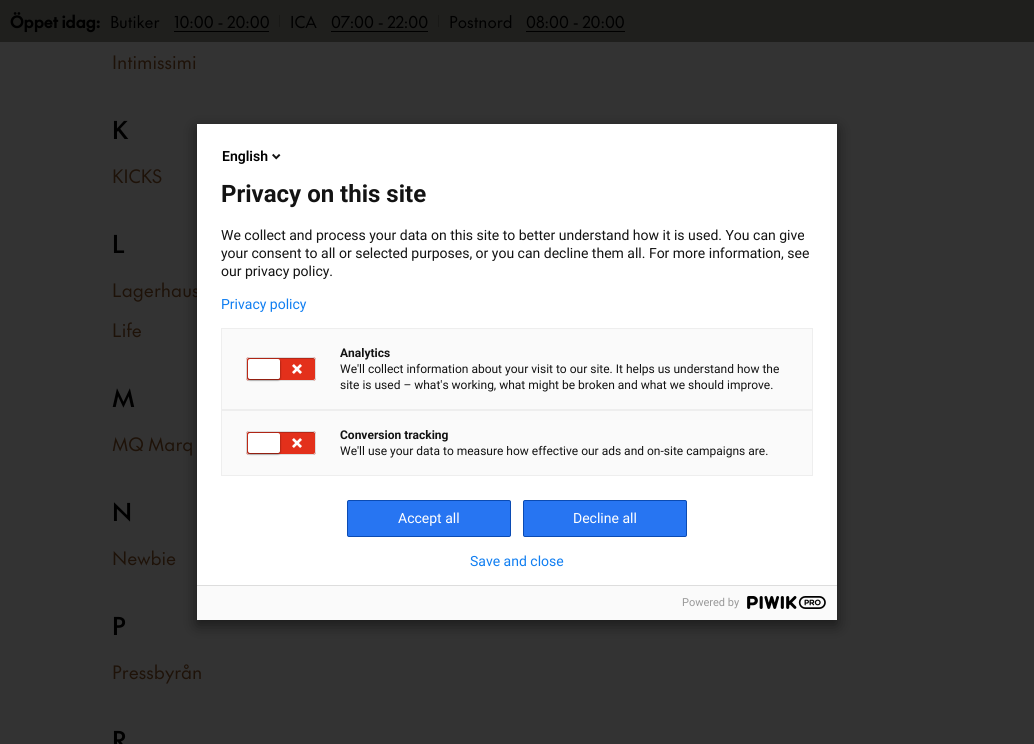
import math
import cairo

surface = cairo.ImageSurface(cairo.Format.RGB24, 1034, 744)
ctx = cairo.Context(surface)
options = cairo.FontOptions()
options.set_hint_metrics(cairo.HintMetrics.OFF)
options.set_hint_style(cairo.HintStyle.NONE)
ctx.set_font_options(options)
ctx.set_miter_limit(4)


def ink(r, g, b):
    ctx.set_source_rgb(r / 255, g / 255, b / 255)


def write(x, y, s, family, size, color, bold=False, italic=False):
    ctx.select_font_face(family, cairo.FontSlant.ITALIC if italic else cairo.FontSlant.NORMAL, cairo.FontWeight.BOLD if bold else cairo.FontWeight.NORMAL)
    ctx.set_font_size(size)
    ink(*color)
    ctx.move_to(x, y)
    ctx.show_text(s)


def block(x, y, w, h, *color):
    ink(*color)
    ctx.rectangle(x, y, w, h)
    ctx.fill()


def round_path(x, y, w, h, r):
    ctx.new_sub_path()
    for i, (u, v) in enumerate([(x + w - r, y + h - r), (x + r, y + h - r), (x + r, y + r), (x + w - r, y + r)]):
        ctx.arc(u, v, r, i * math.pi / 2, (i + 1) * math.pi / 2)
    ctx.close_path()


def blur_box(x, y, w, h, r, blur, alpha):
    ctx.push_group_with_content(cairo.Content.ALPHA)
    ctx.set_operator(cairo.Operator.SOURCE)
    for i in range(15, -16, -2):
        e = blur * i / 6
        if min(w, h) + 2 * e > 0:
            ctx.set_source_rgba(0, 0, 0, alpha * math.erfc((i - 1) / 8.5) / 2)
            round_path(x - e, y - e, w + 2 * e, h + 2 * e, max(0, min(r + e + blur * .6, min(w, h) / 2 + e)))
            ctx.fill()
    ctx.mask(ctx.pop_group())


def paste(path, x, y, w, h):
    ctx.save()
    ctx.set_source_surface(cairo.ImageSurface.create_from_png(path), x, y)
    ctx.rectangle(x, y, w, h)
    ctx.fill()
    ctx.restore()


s1 = dict(family="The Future", size=16, color=(0, 0, 0), bold=True)
s2 = dict(family="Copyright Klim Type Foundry", size=16, color=(0, 0, 0))
s3 = dict(family="Copyright Klim Type Foundry", size=18, color=(30, 18, 8))
s4 = dict(family="The Future Medium", size=24, color=(0, 0, 0))
s5 = dict(family="Roboto SemiBold", size=14, color=(0, 0, 0))
s6 = dict(family="Roboto", size=24, color=(19, 19, 19), bold=True)
s7 = dict(family="Roboto", size=14, color=(19, 19, 19))
s8 = dict(family="Roboto", size=14, color=(16, 126, 241))
s9 = dict(family="Roboto", size=12, color=(19, 19, 19), bold=True)
s10 = dict(family="Roboto", size=12, color=(19, 19, 19))
s11 = dict(family="Roboto", size=14, color=(255, 255, 255))
s12 = dict(family="Roboto", size=11, color=(153, 153, 153))

ink(51, 51, 51)
ctx.paint()
block(0, 0, 1034, 42, 31, 31, 29)
write(10, 28, "Öppet idag:", **s1)
write(110, 28, "Butiker", **s2)
write(174, 28, "10:00 - 20:00", **s2)
block(174, 31, 95, 1, 0, 0, 0)
block(279, 15, 1, 12, 25, 25, 23)
write(290, 28, "ICA", **s2)
write(331, 28, "07:00 - 22:00", **s2)
block(331, 31, 97, 1, 0, 0, 0)
block(438, 15, 1, 12, 25, 25, 23)
write(449, 28, "Postnord", **s2)
write(526, 28, "08:00 - 20:00", **s2)
block(526, 31, 99, 1, 0, 0, 0)
write(112, 69, "Intimissimi", **s3)
write(112, 139, "K", **s4)
write(112, 183, "KICKS", **s3)
write(112, 253, "L", **s4)
write(112, 297, "Lagerhaus", **s3)
write(112, 337, "Life", **s3)
write(112, 407, "M", **s4)
write(112, 451, "MQ Marq", **s3)
write(112, 521, "N", **s4)
write(112, 565, "Newbie", **s3)
write(112, 635, "P", **s4)
write(112, 679, "Pressbyrån", **s3)
write(112, 749, "R", **s4)
ink(0, 0, 0)
blur_box(197, 129, 640, 496, 0, 7.5, 0.5)
block(197, 124, 640, 461, 255, 255, 255)
write(222, 161, "English", **s5)
paste("pic1.png", 272, 153, 9, 7)
write(221, 202, "Privacy on this site", **s6)
write(221, 240, "We collect and process your data on this site to better understand how it is used. You can give", **s7)
write(221, 258, "your consent to all or selected purposes, or you can decline them all. For more information, see", **s7)
write(221, 276, "our privacy policy.", **s7)
write(221, 309, "Privacy policy", **s8)
ink(250, 250, 250)
ctx.rectangle(221.5, 328.5, 591, 81)
ctx.fill_preserve()
ink(238, 238, 238)
ctx.set_line_width(1)
ctx.stroke()
ink(227, 48, 27)
round_path(246, 357, 70, 24, 3)
ctx.fill()
ink(182, 38, 22)
ctx.new_path()
ctx.move_to(249, 359)
ctx.line_to(314, 359)
ctx.line_to(315, 361)
ctx.curve_to(315, 355, 306, 358, 302, 358)
ctx.line_to(260, 358)
ctx.curve_to(256, 358, 247, 355, 247, 361)
ctx.curve_to(247, 360, 248, 359, 249, 359)
ctx.close_path()
ctx.fill()
round_path(246.5, 357.5, 69, 23, 2.5)
ink(221, 221, 221)
ctx.stroke()
ink(0, 0, 0)
blur_box(248, 360, 32, 20, 2, 1, 0.5)
ink(255, 255, 255)
round_path(248, 359, 32, 20, 2)
ctx.fill()
paste("pic2.png", 292, 364, 10, 10)
write(340, 357, "Analytics", **s9)
write(340, 373, "We'll collect information about your visit to our site. It helps us understand how the", **s10)
write(340, 389, "site is used – what's working, what might be broken and what we should improve.", **s10)
ink(250, 250, 250)
ctx.rectangle(221.5, 410.5, 591, 65)
ctx.fill_preserve()
ink(238, 238, 238)
ctx.stroke()
ink(227, 48, 27)
round_path(246, 431, 70, 24, 3)
ctx.fill()
ink(182, 38, 22)
ctx.new_path()
ctx.move_to(249, 433)
ctx.line_to(314, 433)
ctx.line_to(315, 435)
ctx.curve_to(315, 429, 306, 432, 302, 432)
ctx.line_to(260, 432)
ctx.curve_to(256, 432, 247, 429, 247, 435)
ctx.curve_to(247, 434, 248, 433, 249, 433)
ctx.close_path()
ctx.fill()
round_path(246.5, 431.5, 69, 23, 2.5)
ink(221, 221, 221)
ctx.stroke()
ink(0, 0, 0)
blur_box(248, 434, 32, 20, 2, 1, 0.5)
ink(255, 255, 255)
round_path(248, 433, 32, 20, 2)
ctx.fill()
paste("pic2.png", 292, 438, 10, 10)
write(340, 439, "Conversion tracking", **s9)
write(340, 455, "We'll use your data to measure how effective our ads and on-site campaigns are.", **s10)
ink(39, 117, 242)
round_path(347.5, 500.5, 163, 36, 1.5)
ctx.fill_preserve()
ink(11, 75, 179)
ctx.stroke()
write(398, 523, "Accept all", **s11)
ink(39, 117, 242)
round_path(523.5, 500.5, 163, 36, 1.5)
ctx.fill_preserve()
ink(11, 75, 179)
ctx.stroke()
write(573, 523, "Decline all", **s11)
write(470, 566, "Save and close", **s8)
block(197, 586, 640, 34, 250, 250, 250)
block(197, 585, 640, 1, 221, 221, 221)
write(682, 606, "Powered by", **s12)
paste("pic3.png", 747, 596, 79, 13)
surface.write_to_png("screenshot.png")
